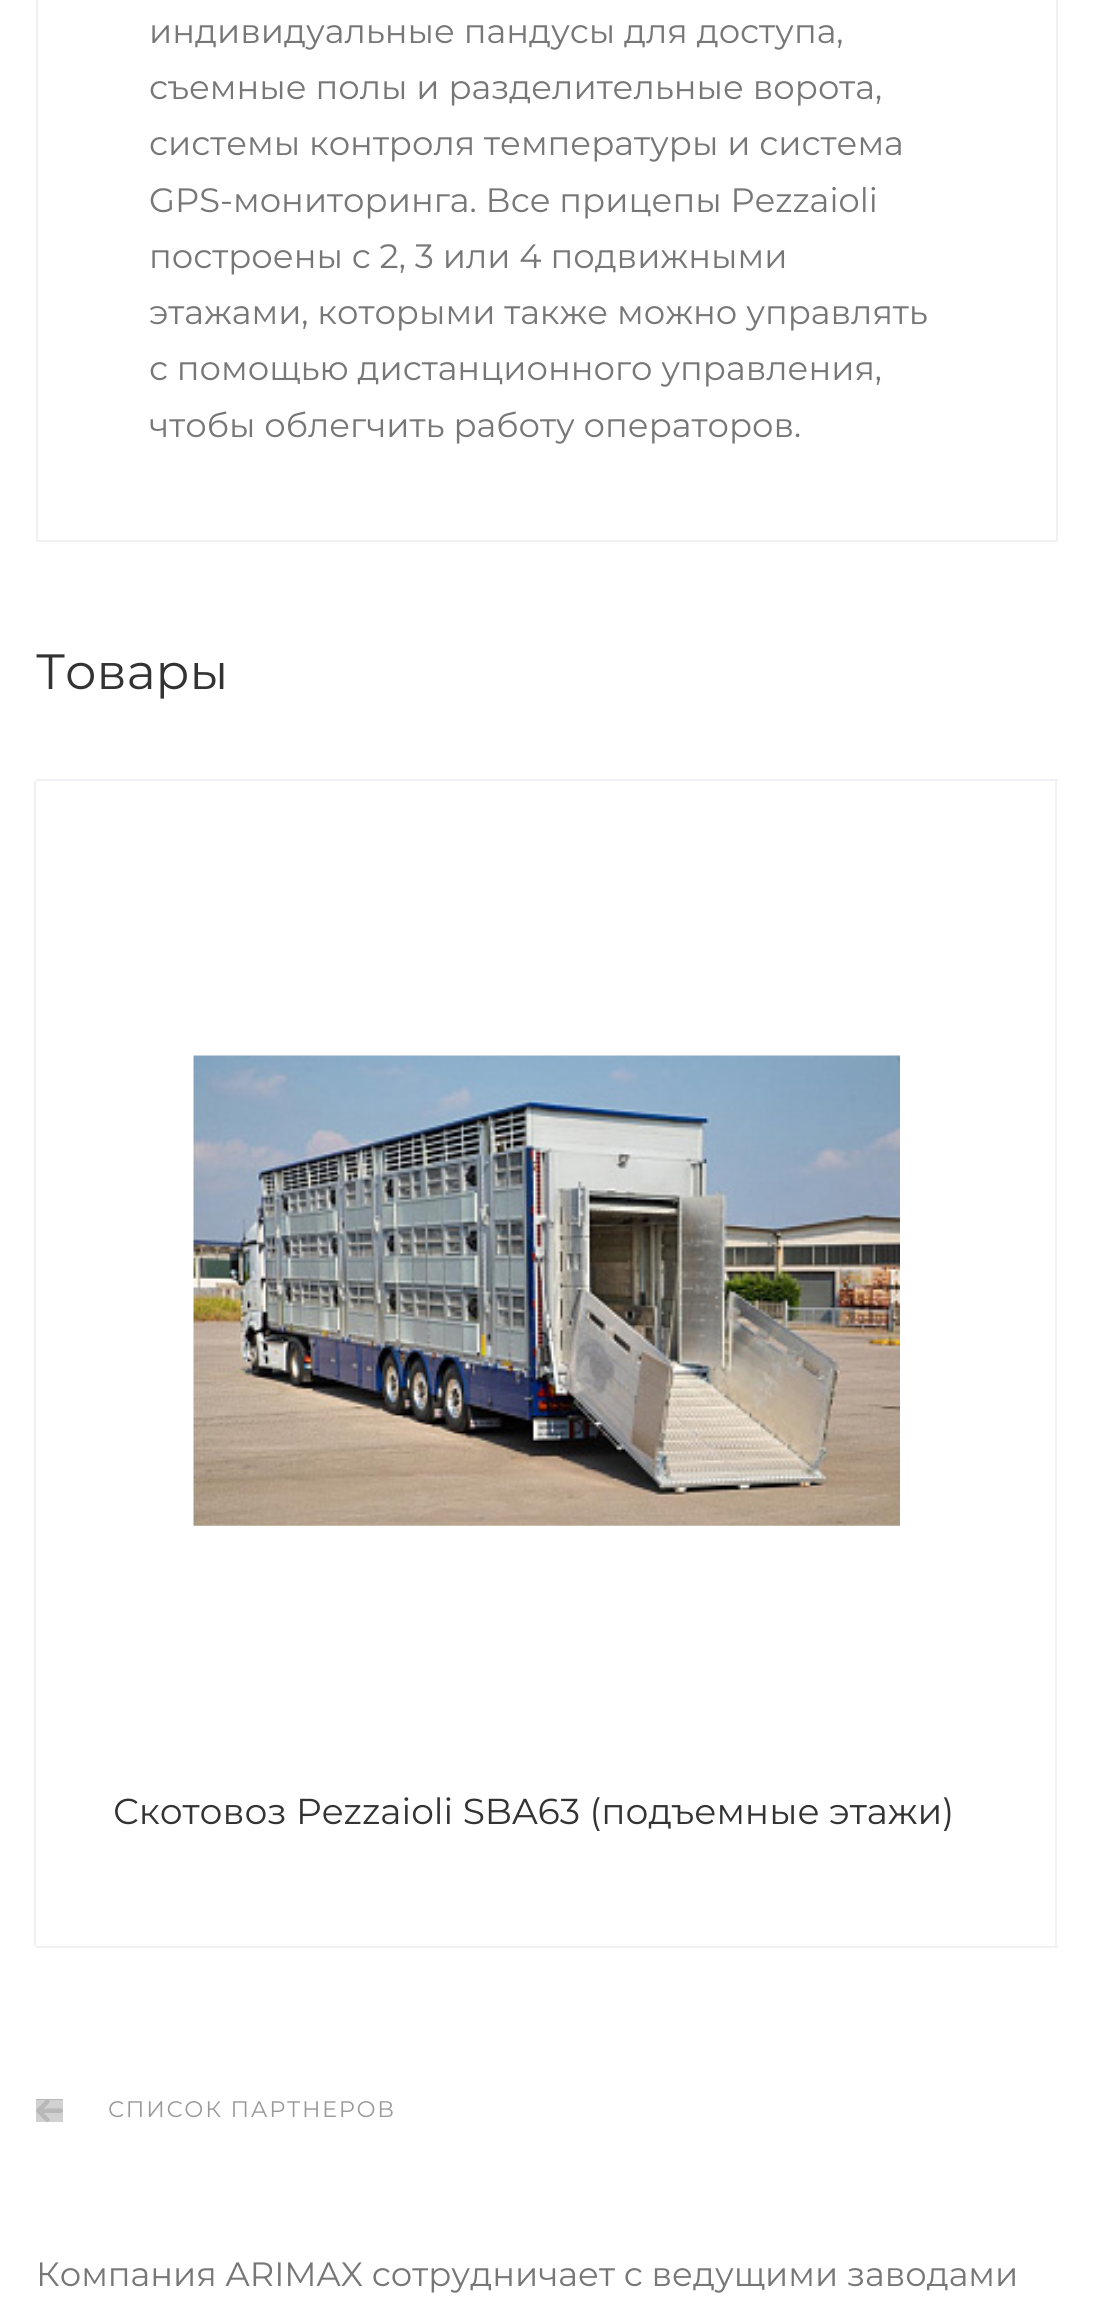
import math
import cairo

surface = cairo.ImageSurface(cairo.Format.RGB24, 1093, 2316)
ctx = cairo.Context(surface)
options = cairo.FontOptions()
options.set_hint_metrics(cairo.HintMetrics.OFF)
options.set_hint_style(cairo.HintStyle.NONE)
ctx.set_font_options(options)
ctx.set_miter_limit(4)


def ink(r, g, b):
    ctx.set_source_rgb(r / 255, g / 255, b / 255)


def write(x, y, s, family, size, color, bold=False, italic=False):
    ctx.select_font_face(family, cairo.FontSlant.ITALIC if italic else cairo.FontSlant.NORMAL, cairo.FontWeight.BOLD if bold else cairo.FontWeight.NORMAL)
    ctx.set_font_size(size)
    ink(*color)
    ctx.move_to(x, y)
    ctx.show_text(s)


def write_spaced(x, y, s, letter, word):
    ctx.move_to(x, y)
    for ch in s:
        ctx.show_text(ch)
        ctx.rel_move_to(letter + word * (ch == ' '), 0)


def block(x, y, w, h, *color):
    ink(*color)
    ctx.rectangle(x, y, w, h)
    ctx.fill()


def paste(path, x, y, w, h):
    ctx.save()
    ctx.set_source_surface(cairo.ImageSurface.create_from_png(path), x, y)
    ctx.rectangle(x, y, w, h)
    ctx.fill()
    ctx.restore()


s1 = dict(family="Montserrat", size=33.75, color=(119, 119, 119))
s2 = dict(family="Montserrat", size=49.5, color=(51, 51, 51))
s3 = dict(family="Montserrat", size=36, color=(51, 51, 51))

ink(255, 255, 255)
ctx.paint()
ctx.rectangle(37, -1, 1020, 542)
ink(239, 241, 245)
ctx.stroke()
write(149, 43, "индивидуальные пандусы для доступа,", **s1)
write(149, 99, "съемные полы и разделительные ворота,", **s1)
write(149, 155, "системы контроля температуры и система", **s1)
write(149, 212, "GPS-мониторинга. Все прицепы Pezzaioli", **s1)
write(149, 268, "построены с 2, 3 или 4 подвижными", **s1)
write(149, 324, "этажами, которыми также можно управлять", **s1)
write(149, 380, "с помощью дистанционного управления,", **s1)
write(149, 437, "чтобы облегчить работу операторов.", **s1)
write(36, 689, "Товары", **s2)
block(36, 779, 1022, 2, 239, 241, 245)
block(36, 1946, 1022, 2, 239, 241, 245)
block(34, 781, 2, 1165, 239, 241, 245)
paste("pic1.png", 193, 1055, 707, 471)
write(113, 1824, "Скотовоз Pezzaioli SBA63 (подъемные этажи)", **s3)
block(1055, 781, 2, 1165, 239, 241, 245)
block(36, 2099, 27, 23, 184, 184, 184)
paste("pic2.png", 36, 2100, 27, 22)
ctx.set_font_size(22.5)
ink(153, 153, 153)
write_spaced(108, 2117, "СПИСОК ПАРТНЕРОВ", 1.75, 0)
write(36, 2286, "Компания ARIMAX сотрудничает с ведущими заводами", **s1)
surface.write_to_png("screenshot.png")
